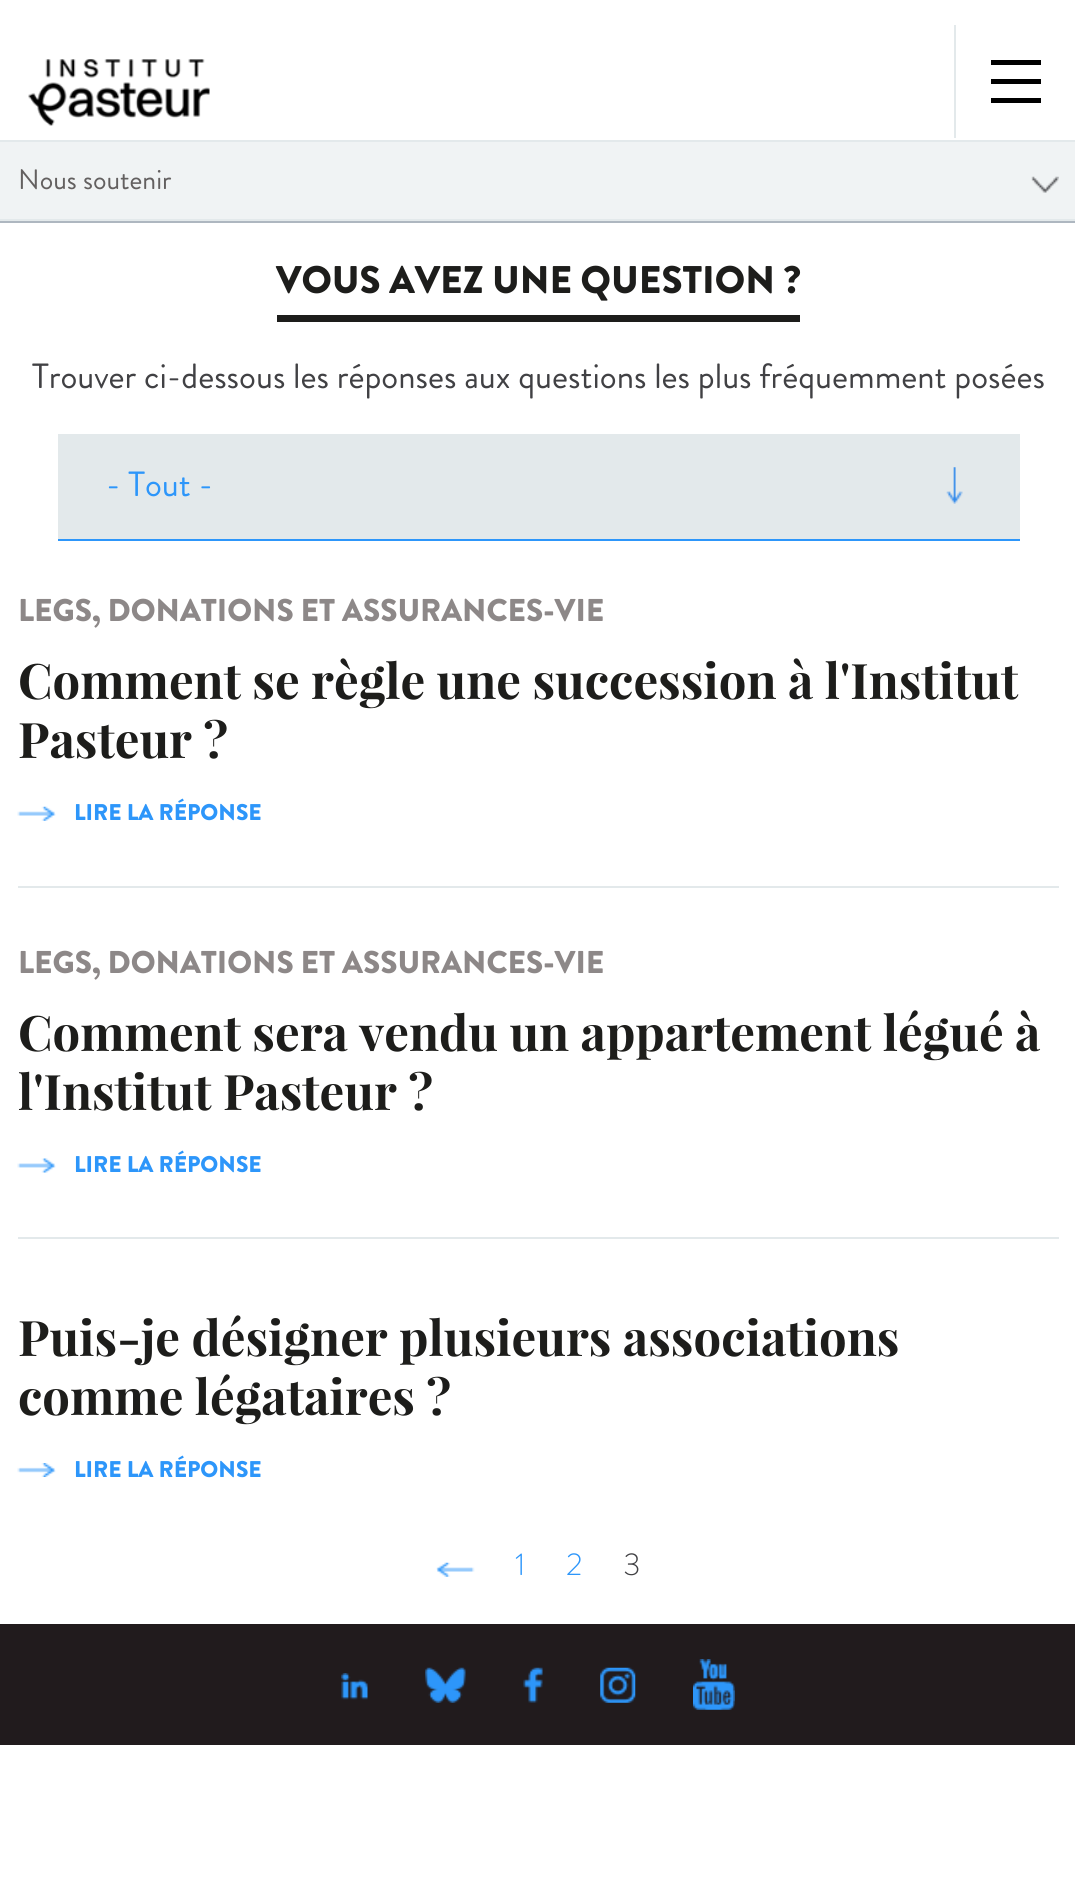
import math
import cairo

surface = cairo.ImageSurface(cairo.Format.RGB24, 1075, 1897)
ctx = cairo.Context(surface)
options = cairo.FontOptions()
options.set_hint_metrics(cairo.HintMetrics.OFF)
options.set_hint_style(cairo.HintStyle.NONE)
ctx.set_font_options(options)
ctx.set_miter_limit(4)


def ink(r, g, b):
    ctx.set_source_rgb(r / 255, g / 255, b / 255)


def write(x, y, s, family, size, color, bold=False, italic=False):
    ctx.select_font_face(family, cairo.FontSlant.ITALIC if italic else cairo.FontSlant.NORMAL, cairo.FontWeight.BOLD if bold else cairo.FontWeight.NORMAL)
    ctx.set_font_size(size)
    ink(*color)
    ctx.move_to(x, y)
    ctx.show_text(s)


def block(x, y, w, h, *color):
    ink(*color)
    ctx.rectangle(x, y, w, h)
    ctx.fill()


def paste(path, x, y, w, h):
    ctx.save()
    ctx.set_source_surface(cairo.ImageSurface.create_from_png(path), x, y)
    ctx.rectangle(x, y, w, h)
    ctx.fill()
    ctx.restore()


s1 = dict(family="Brandon Grotesque", size=28, color=(99, 96, 96))
s2 = dict(family="Brandon Grotesque Black", size=38.5, color=(29, 29, 27))
s3 = dict(family="Brandon Grotesque", size=35, color=(65, 65, 68))
s4 = dict(family="Brandon Grotesque", size=35, color=(45, 150, 250))
s5 = dict(family="Brandon Grotesque Black", size=31.5, color=(141, 136, 136))
s6 = dict(family="Playfair Display", size=49, color=(29, 29, 27), bold=True)
s7 = dict(family="Brandon Grotesque Black", size=22.75, color=(45, 150, 250))
s8 = dict(family="Brandon Grotesque Light", size=31.5, color=(45, 150, 250))
s9 = dict(family="Brandon Grotesque Light", size=31.5, color=(65, 65, 68))

ink(255, 255, 255)
ctx.paint()
block(0, 221, 1075, 2, 174, 183, 192)
paste("pic1.png", 28, 59, 182, 67)
block(954, 25, 2, 113, 227, 233, 235)
block(991, 79, 50, 5, 0, 0, 0)
block(991, 60, 50, 5, 0, 0, 0)
block(991, 98, 50, 5, 0, 0, 0)
block(0, 142, 1075, 77, 240, 243, 244)
block(0, 140, 1075, 2, 227, 233, 235)
block(0, 219, 1075, 2, 227, 233, 235)
write(18, 189, "Nous soutenir", **s1)
paste("pic2.png", 1031, 176, 28, 17)
write(276, 293, "VOUS AVEZ UNE QUESTION ?", **s2)
block(277, 315, 523, 7, 29, 29, 27)
write(32, 388, "Trouver ci-dessous les réponses aux questions les plus fréquemment posées", **s3)
block(58, 434, 962, 105, 227, 233, 235)
paste("pic3.png", 946, 467, 17, 37)
block(58, 539, 962, 2, 45, 150, 250)
write(106, 496, "- Tout -", **s4)
write(18, 621, "LEGS, DONATIONS ET ASSURANCES-VIE", **s5)
write(18, 699, "Comment se règle une succession à l'Institut", **s6)
write(18, 758, "Pasteur ?", **s6)
paste("pic4.png", 17, 806, 39, 15)
write(74, 820, "LIRE LA RÉPONSE", **s7)
block(18, 886, 1041, 2, 227, 233, 235)
write(18, 973, "LEGS, DONATIONS ET ASSURANCES-VIE", **s5)
write(18, 1051, "Comment sera vendu un appartement légué à", **s6)
write(18, 1110, "l'Institut Pasteur ?", **s6)
paste("pic5.png", 17, 1158, 39, 15)
write(74, 1172, "LIRE LA RÉPONSE", **s7)
block(18, 1237, 1041, 2, 227, 233, 235)
write(18, 1356, "Puis-je désigner plusieurs associations", **s6)
write(18, 1415, "comme légataires ?", **s6)
paste("pic6.png", 17, 1463, 39, 14)
write(74, 1477, "LIRE LA RÉPONSE", **s7)
paste("pic7.png", 436, 1562, 39, 15)
write(515, 1575, "1", **s8)
write(566, 1575, "2", **s8)
write(623, 1575, "3", **s9)
block(0, 1624, 1075, 121, 33, 27, 29)
paste("pic8.png", 341, 1673, 27, 27)
paste("pic9.png", 425, 1667, 41, 36)
paste("pic10.png", 523, 1667, 20, 36)
paste("pic11.png", 600, 1667, 36, 36)
paste("pic12.png", 693, 1659, 42, 51)
surface.write_to_png("screenshot.png")
